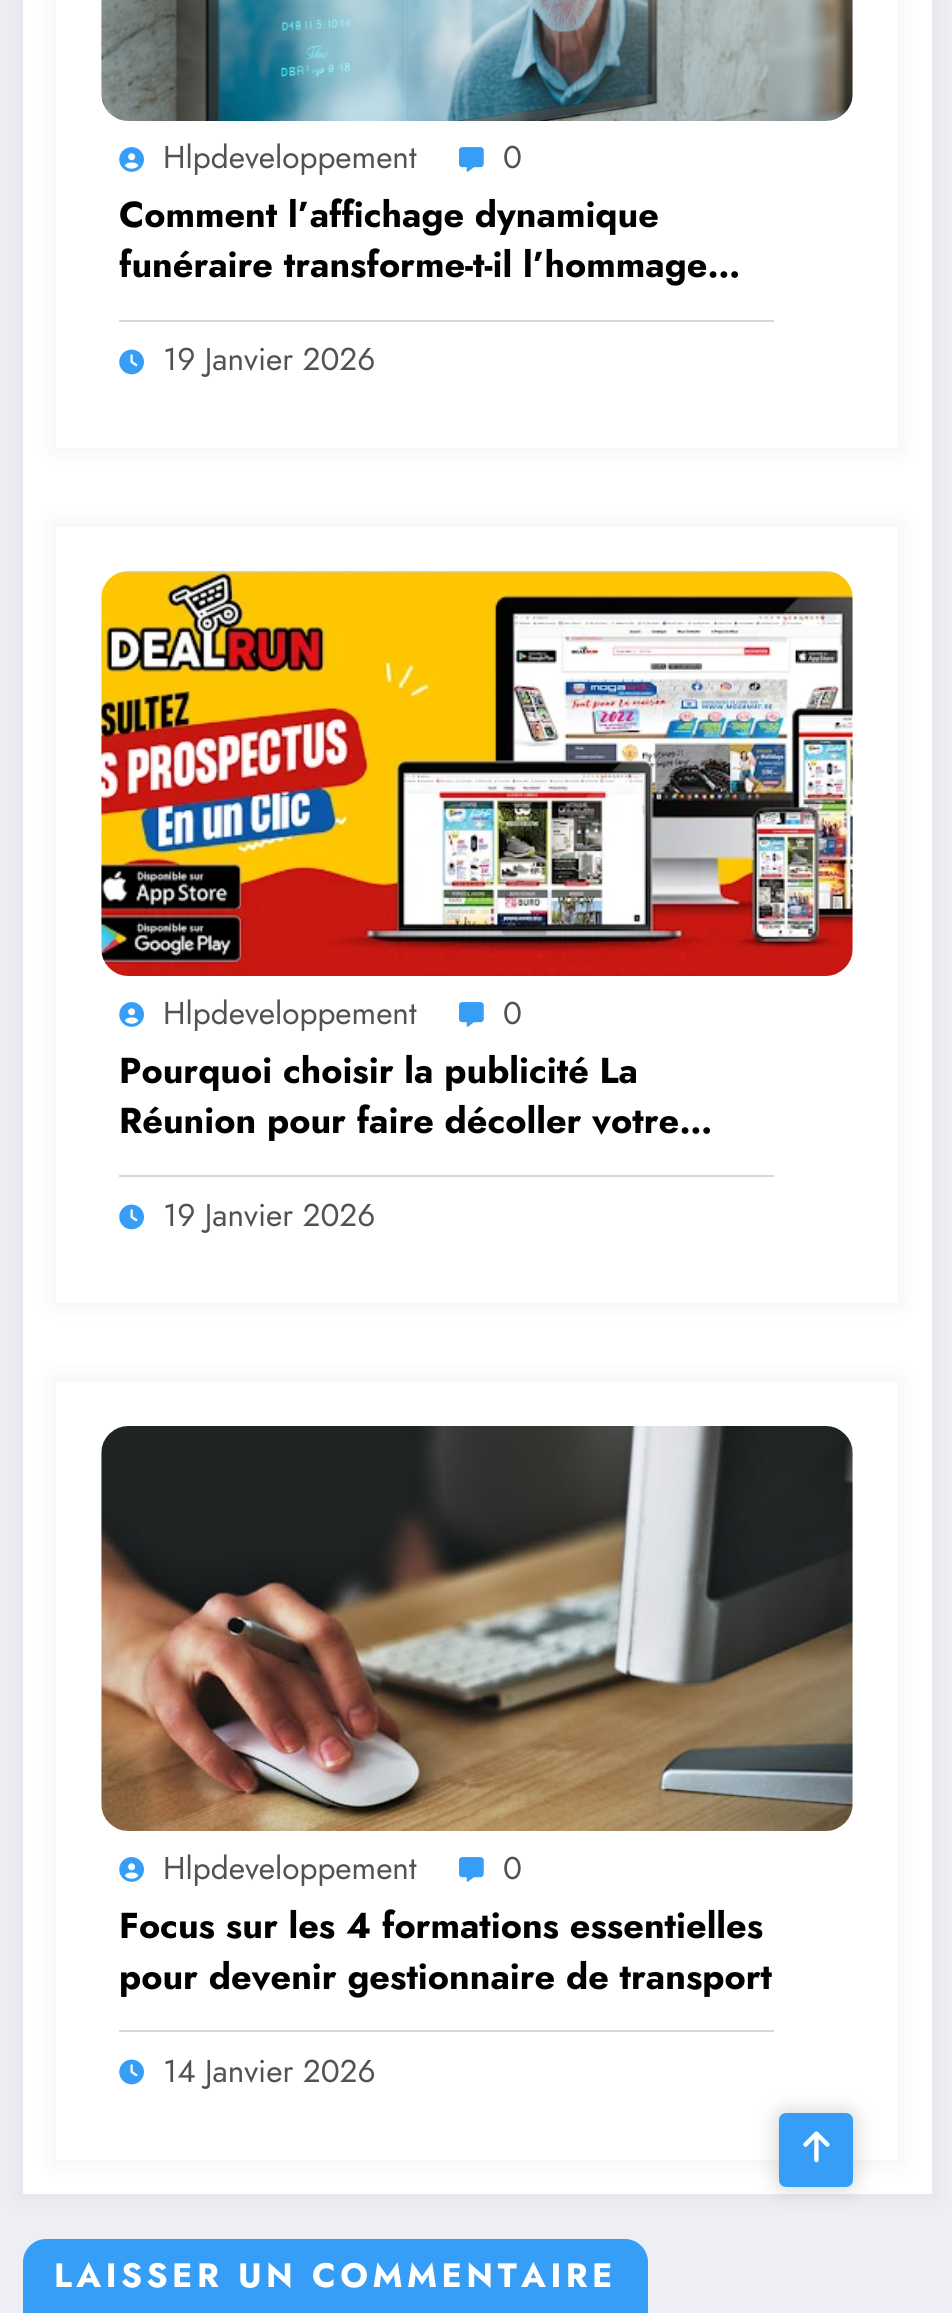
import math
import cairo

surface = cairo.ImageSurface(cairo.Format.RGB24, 952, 2313)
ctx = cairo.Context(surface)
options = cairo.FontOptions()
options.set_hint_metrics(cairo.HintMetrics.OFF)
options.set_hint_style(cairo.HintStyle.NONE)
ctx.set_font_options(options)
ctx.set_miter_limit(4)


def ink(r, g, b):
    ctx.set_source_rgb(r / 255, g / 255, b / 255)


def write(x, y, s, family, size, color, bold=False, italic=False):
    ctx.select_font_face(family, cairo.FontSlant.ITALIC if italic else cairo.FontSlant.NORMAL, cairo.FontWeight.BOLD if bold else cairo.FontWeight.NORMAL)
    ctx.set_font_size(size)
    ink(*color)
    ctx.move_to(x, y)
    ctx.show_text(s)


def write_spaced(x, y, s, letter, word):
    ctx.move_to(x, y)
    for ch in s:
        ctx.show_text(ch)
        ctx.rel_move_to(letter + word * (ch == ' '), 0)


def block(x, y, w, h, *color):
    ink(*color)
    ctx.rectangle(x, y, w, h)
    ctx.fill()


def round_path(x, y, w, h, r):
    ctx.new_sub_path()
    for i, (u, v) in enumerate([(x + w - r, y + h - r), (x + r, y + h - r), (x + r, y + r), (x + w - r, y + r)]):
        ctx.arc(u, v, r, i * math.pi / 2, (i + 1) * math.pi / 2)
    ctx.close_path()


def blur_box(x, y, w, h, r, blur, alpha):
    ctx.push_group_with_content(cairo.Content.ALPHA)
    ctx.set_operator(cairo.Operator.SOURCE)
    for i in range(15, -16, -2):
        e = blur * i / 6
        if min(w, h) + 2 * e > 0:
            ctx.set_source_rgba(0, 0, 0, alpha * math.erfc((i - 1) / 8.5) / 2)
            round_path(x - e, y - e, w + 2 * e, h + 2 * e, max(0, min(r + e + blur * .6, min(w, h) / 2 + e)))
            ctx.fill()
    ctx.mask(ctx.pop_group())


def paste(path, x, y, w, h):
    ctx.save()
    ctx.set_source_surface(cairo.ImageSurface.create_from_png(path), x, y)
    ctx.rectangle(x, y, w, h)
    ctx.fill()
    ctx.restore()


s1 = dict(family="Jost", size=31.5, color=(82, 82, 82))
s2 = dict(family="Jost", size=36, color=(0, 0, 0), bold=True)

ink(238, 238, 245)
ctx.paint()
ink(23, 23, 35)
blur_box(18, -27, 918, 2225, 0, 9, 0.05)
block(23, 0, 909, 2194, 255, 255, 255)
ink(23, 23, 35)
blur_box(52, -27, 850, 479, 0, 9, 0.05)
block(56, 0, 842, 448, 255, 255, 255)
paste("pic1.png", 101, 0, 752, 121)
block(119, 320, 655, 2, 215, 215, 215)
paste("pic2.png", 119, 147, 25, 25)
write(163, 168, "Hlpdeveloppement", **s1)
paste("pic3.png", 459, 147, 25, 25)
write(503, 168, "0", **s1)
write(119, 227, "Comment l’affichage dynamique", **s2)
write(119, 277, "funéraire transforme-t-il l’hommage…", **s2)
paste("pic4.png", 119, 349, 25, 26)
write(163, 370, "19 Janvier 2026", **s1)
ink(23, 23, 35)
blur_box(52, 522, 850, 785, 0, 9, 0.05)
block(56, 527, 842, 776, 255, 255, 255)
paste("pic5.png", 101, 571, 752, 405)
block(119, 1175, 655, 2, 215, 215, 215)
paste("pic2.png", 119, 1002, 25, 25)
write(163, 1024, "Hlpdeveloppement", **s1)
paste("pic3.png", 459, 1002, 25, 25)
write(503, 1024, "0", **s1)
write(119, 1083, "Pourquoi choisir la publicité La", **s2)
write(119, 1133, "Réunion pour faire décoller votre…", **s2)
paste("pic4.png", 119, 1204, 25, 26)
write(163, 1226, "19 Janvier 2026", **s1)
ink(23, 23, 35)
blur_box(52, 1377, 850, 788, 0, 9, 0.05)
block(56, 1382, 842, 778, 255, 255, 255)
paste("pic6.png", 101, 1426, 752, 405)
block(119, 2030, 655, 2, 215, 215, 215)
paste("pic2.png", 119, 1857, 25, 25)
write(163, 1879, "Hlpdeveloppement", **s1)
paste("pic3.png", 459, 1857, 25, 25)
write(503, 1879, "0", **s1)
write(119, 1938, "Focus sur les 4 formations essentielles", **s2)
write(119, 1989, "pour devenir gestionnaire de transport", **s2)
paste("pic4.png", 119, 2059, 25, 26)
write(163, 2082, "14 Janvier 2026", **s1)
ink(54, 158, 246)
ctx.new_path()
ctx.move_to(46, 2239)
ctx.line_to(625, 2239)
ctx.curve_to(637.5, 2239, 648, 2249.5, 648, 2262)
ctx.line_to(648, 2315)
ctx.line_to(23, 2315)
ctx.line_to(23, 2262)
ctx.curve_to(23, 2249.5, 33.5, 2239, 46, 2239)
ctx.close_path()
ctx.fill()
ctx.select_font_face("Jost", cairo.FontSlant.NORMAL, cairo.FontWeight.BOLD)
ctx.set_font_size(33.75)
ink(255, 255, 255)
write_spaced(54, 2287, "LAISSER UN COMMENTAIRE", 4.5, 0)
ink(0, 0, 0)
blur_box(779, 2113, 74, 74, 7, 11, 0.2)
ink(54, 158, 246)
round_path(779, 2113, 74, 74, 7)
ctx.fill()
paste("pic7.png", 803, 2131, 27, 32)
surface.write_to_png("screenshot.png")
